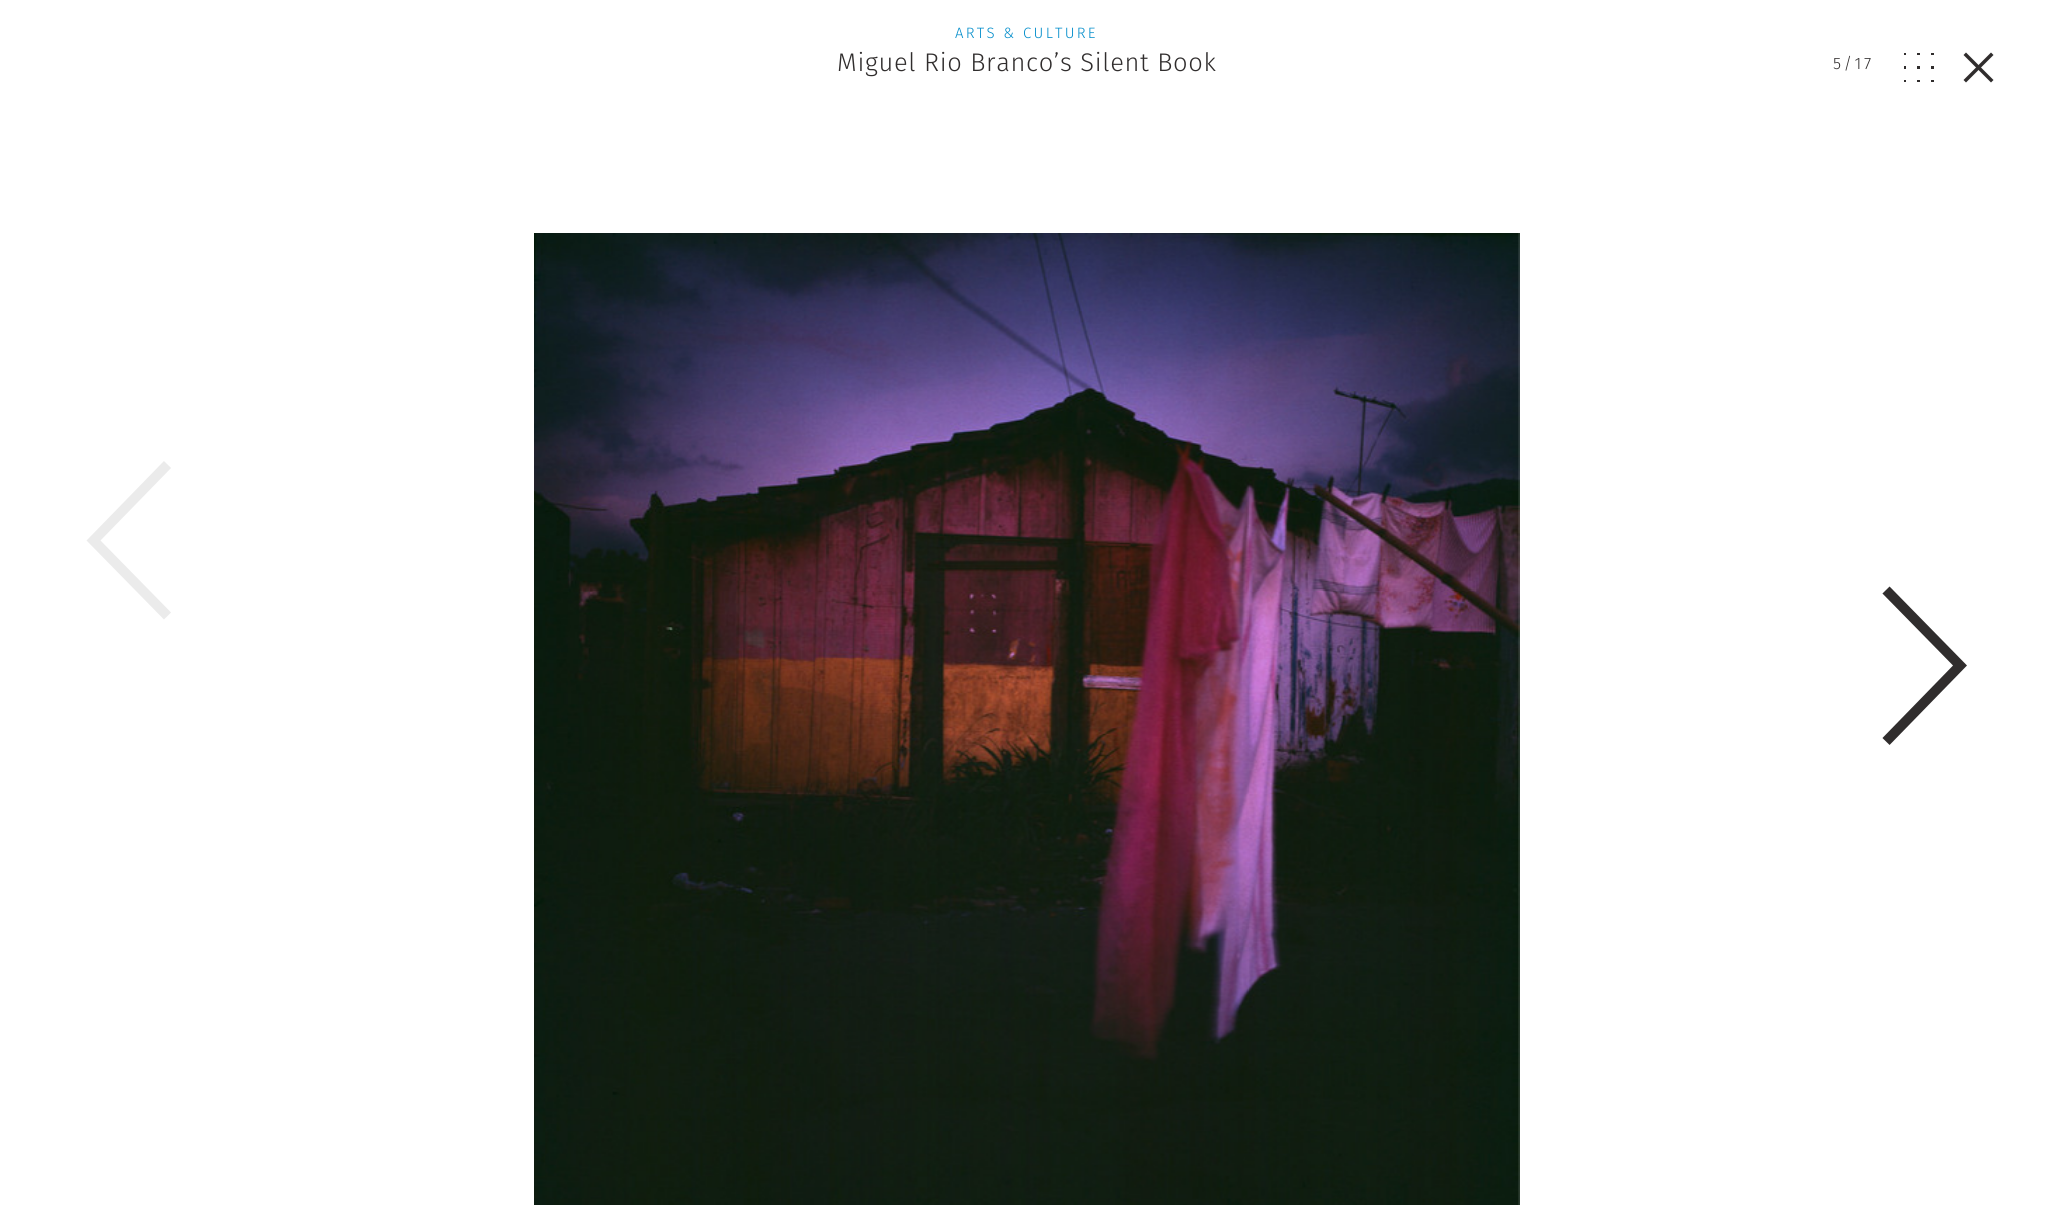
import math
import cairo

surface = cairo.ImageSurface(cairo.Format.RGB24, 2053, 1205)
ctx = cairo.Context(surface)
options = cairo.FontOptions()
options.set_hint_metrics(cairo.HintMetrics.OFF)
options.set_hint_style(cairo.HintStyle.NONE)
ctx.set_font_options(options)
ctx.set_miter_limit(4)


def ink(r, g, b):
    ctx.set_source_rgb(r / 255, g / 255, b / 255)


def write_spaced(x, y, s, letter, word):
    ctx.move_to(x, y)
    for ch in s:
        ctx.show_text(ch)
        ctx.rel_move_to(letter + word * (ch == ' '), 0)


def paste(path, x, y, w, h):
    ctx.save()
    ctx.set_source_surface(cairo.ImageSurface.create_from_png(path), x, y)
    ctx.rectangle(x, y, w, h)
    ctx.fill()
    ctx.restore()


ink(255, 255, 255)
ctx.paint()
ctx.select_font_face("Fira Sans Light")
ctx.set_font_size(15)
ink(0, 140, 202)
write_spaced(955, 38, "ARTS & CULTURE", 2.25, 0)
ctx.set_font_size(25.5)
ink(48, 45, 45)
write_spaced(837, 71, "Miguel Rio Branco’s Silent Book", 0.65, 0)
ctx.set_font_size(16.5)
write_spaced(1833, 69, "5/17", 2.5, 0)
paste("pic1.png", 1904, 53, 30, 29)
ctx.new_path()
ctx.move_to(1966, 52.5)
ctx.line_to(1993.5, 80)
ctx.line_to(1991, 82.5)
ctx.line_to(1963.5, 55)
ctx.close_path()
ctx.fill()
ctx.new_path()
ctx.move_to(1963.5, 80)
ctx.line_to(1991, 52.5)
ctx.line_to(1993.5, 55)
ctx.line_to(1966, 82.5)
ctx.close_path()
ctx.fill()
ctx.new_path()
ctx.move_to(167.5, 464.5)
ctx.line_to(93.5, 540.5)
ctx.line_to(167.5, 616)
ink(235, 235, 235)
ctx.set_line_width(10)
ctx.stroke()
paste("pic2.png", 534, 233, 986, 972)
ctx.new_path()
ctx.move_to(1886, 741.5)
ctx.line_to(1960, 665.5)
ctx.line_to(1886, 590)
ink(48, 45, 45)
ctx.stroke()
surface.write_to_png("screenshot.png")
